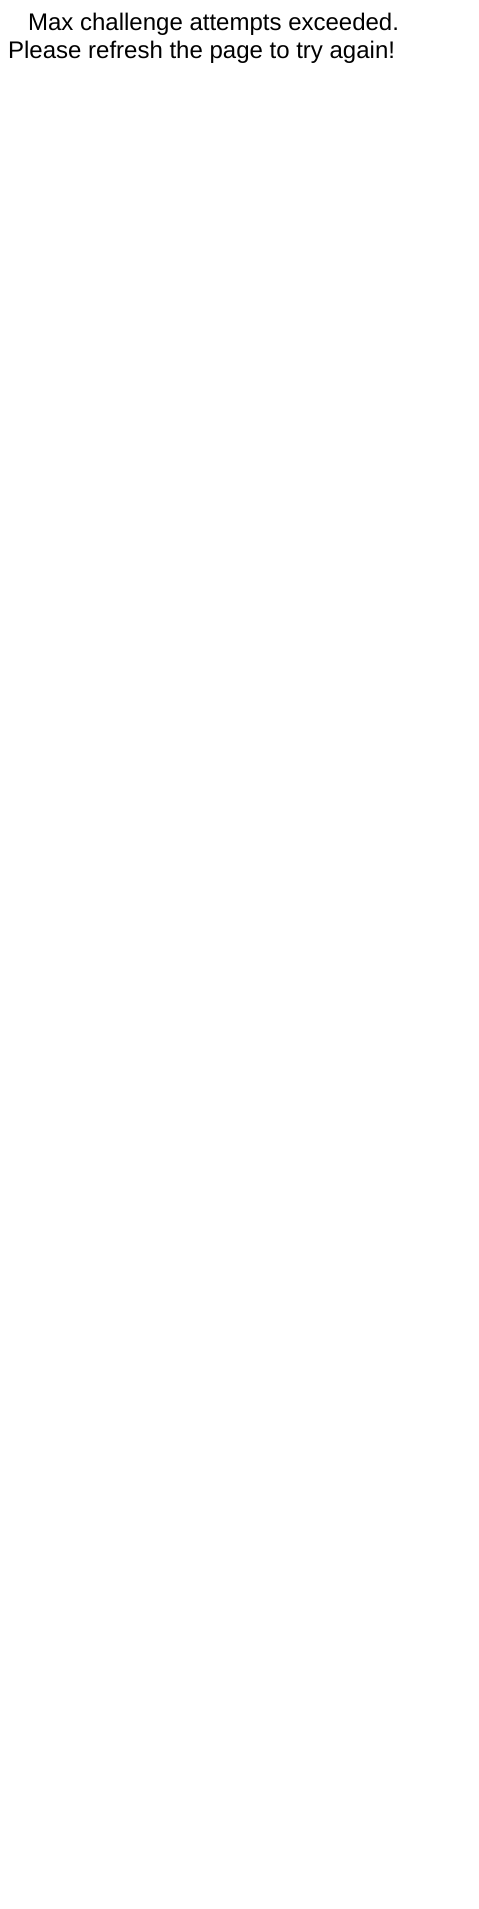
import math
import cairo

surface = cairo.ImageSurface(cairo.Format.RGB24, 479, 1909)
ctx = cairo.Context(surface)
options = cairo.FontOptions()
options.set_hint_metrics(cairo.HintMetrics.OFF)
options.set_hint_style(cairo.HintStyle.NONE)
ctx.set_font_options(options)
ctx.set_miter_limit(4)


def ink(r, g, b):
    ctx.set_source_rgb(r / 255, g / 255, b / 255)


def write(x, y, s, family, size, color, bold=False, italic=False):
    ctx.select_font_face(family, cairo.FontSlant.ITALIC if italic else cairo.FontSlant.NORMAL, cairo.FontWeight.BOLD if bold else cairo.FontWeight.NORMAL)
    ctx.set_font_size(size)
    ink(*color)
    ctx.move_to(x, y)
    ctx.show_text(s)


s1 = dict(family="Liberation Sans", size=24, color=(0, 0, 0))

ink(255, 255, 255)
ctx.paint()
write(28, 30, "Max challenge attempts exceeded.", **s1)
write(8, 58, "Please refresh the page to try again!", **s1)
surface.write_to_png("screenshot.png")
